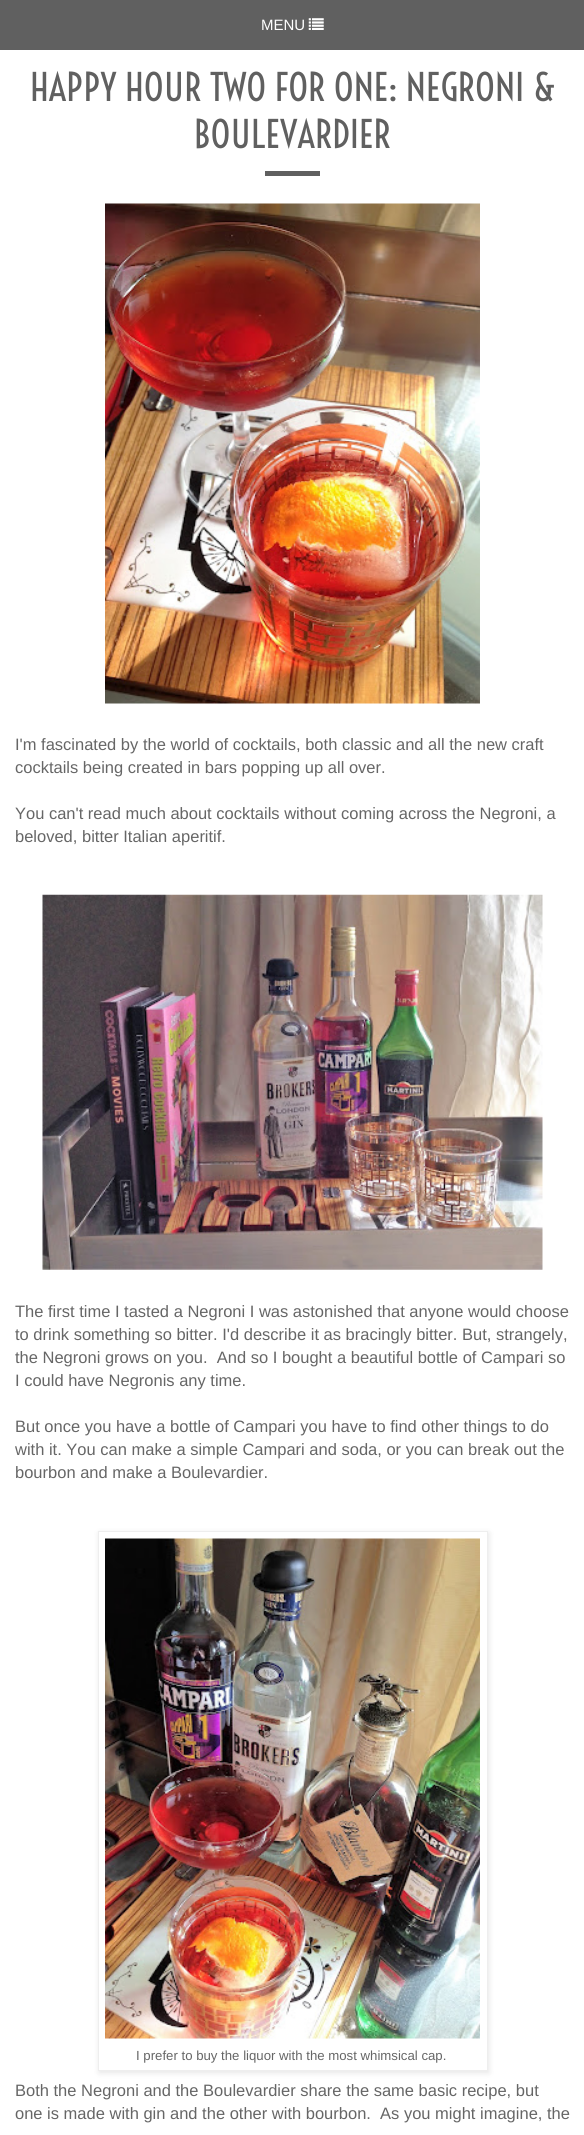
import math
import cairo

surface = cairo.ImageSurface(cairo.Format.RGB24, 584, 2135)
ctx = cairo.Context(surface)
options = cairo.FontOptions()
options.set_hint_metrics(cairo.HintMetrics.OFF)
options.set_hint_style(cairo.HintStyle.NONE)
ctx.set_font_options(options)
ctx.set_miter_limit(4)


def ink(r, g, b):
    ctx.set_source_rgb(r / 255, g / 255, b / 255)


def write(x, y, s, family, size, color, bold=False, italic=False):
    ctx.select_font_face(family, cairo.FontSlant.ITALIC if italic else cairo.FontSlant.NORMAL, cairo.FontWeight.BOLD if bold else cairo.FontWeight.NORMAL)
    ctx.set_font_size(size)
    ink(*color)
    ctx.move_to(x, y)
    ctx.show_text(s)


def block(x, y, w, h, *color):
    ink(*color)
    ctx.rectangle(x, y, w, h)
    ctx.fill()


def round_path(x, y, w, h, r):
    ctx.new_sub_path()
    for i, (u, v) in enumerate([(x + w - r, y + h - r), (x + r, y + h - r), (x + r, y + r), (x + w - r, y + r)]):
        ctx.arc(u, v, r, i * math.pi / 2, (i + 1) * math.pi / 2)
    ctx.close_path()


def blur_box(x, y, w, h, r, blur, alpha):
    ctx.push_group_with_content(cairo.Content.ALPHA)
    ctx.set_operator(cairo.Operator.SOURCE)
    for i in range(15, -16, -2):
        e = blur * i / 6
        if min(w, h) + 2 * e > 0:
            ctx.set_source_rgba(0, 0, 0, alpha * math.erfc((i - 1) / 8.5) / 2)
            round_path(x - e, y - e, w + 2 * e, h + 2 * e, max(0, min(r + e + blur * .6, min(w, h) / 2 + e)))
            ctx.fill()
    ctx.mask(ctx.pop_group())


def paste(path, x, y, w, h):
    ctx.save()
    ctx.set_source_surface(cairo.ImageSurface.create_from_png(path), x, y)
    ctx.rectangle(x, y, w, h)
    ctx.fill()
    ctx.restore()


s1 = dict(family="Liberation Sans", size=15, color=(255, 255, 255))
s2 = dict(family="Voltaire", size=37.5, color=(96, 96, 96))
s3 = dict(family="Liberation Sans", size=16.5, color=(102, 102, 102))
s4 = dict(family="Liberation Sans", size=13.2, color=(102, 102, 102))

ink(255, 255, 255)
ctx.paint()
block(0, 0, 584, 50, 96, 96, 96)
write(261, 30, "MENU", **s1)
paste("pic1.png", 308, 18, 16, 12)
write(30, 101, "HAPPY HOUR TWO FOR ONE: NEGRONI &", **s2)
write(194, 148, "BOULEVARDIER", **s2)
block(265, 171, 55, 5, 96, 96, 96)
paste("pic2.png", 105, 203, 375, 501)
write(15, 750, "I'm fascinated by the world of cocktails, both classic and all the new craft", **s3)
write(15, 773, "cocktails being created in bars popping up all over.", **s3)
write(15, 819, "You can't read much about cocktails without coming across the Negroni, a", **s3)
write(15, 842, "beloved, bitter Italian aperitif.", **s3)
paste("pic3.png", 42, 894, 501, 376)
write(15, 1317, "The first time I tasted a Negroni I was astonished that anyone would choose", **s3)
write(15, 1340, "to drink something so bitter. I'd describe it as bracingly bitter. But, strangely,", **s3)
write(15, 1363, "the Negroni grows on you.  And so I bought a beautiful bottle of Campari so", **s3)
write(15, 1386, "I could have Negronis any time.", **s3)
write(15, 1432, "But once you have a bottle of Campari you have to find other things to do", **s3)
write(15, 1455, "with it. You can make a simple Campari and soda, or you can break out the", **s3)
write(15, 1478, "bourbon and make a Boulevardier.", **s3)
ink(0, 0, 0)
blur_box(99, 1533, 390, 540, 0, 3, 0.1)
ink(255, 255, 255)
ctx.rectangle(98.5, 1531.5, 389, 539)
ctx.fill_preserve()
ink(238, 238, 238)
ctx.set_line_width(1)
ctx.stroke()
paste("pic4.png", 105, 1538, 375, 501)
write(136, 2060, "I prefer to buy the liquor with the most whimsical cap.", **s4)
write(15, 2096, "Both the Negroni and the Boulevardier share the same basic recipe, but", **s3)
write(15, 2119, "one is made with gin and the other with bourbon.  As you might imagine, the", **s3)
surface.write_to_png("screenshot.png")
